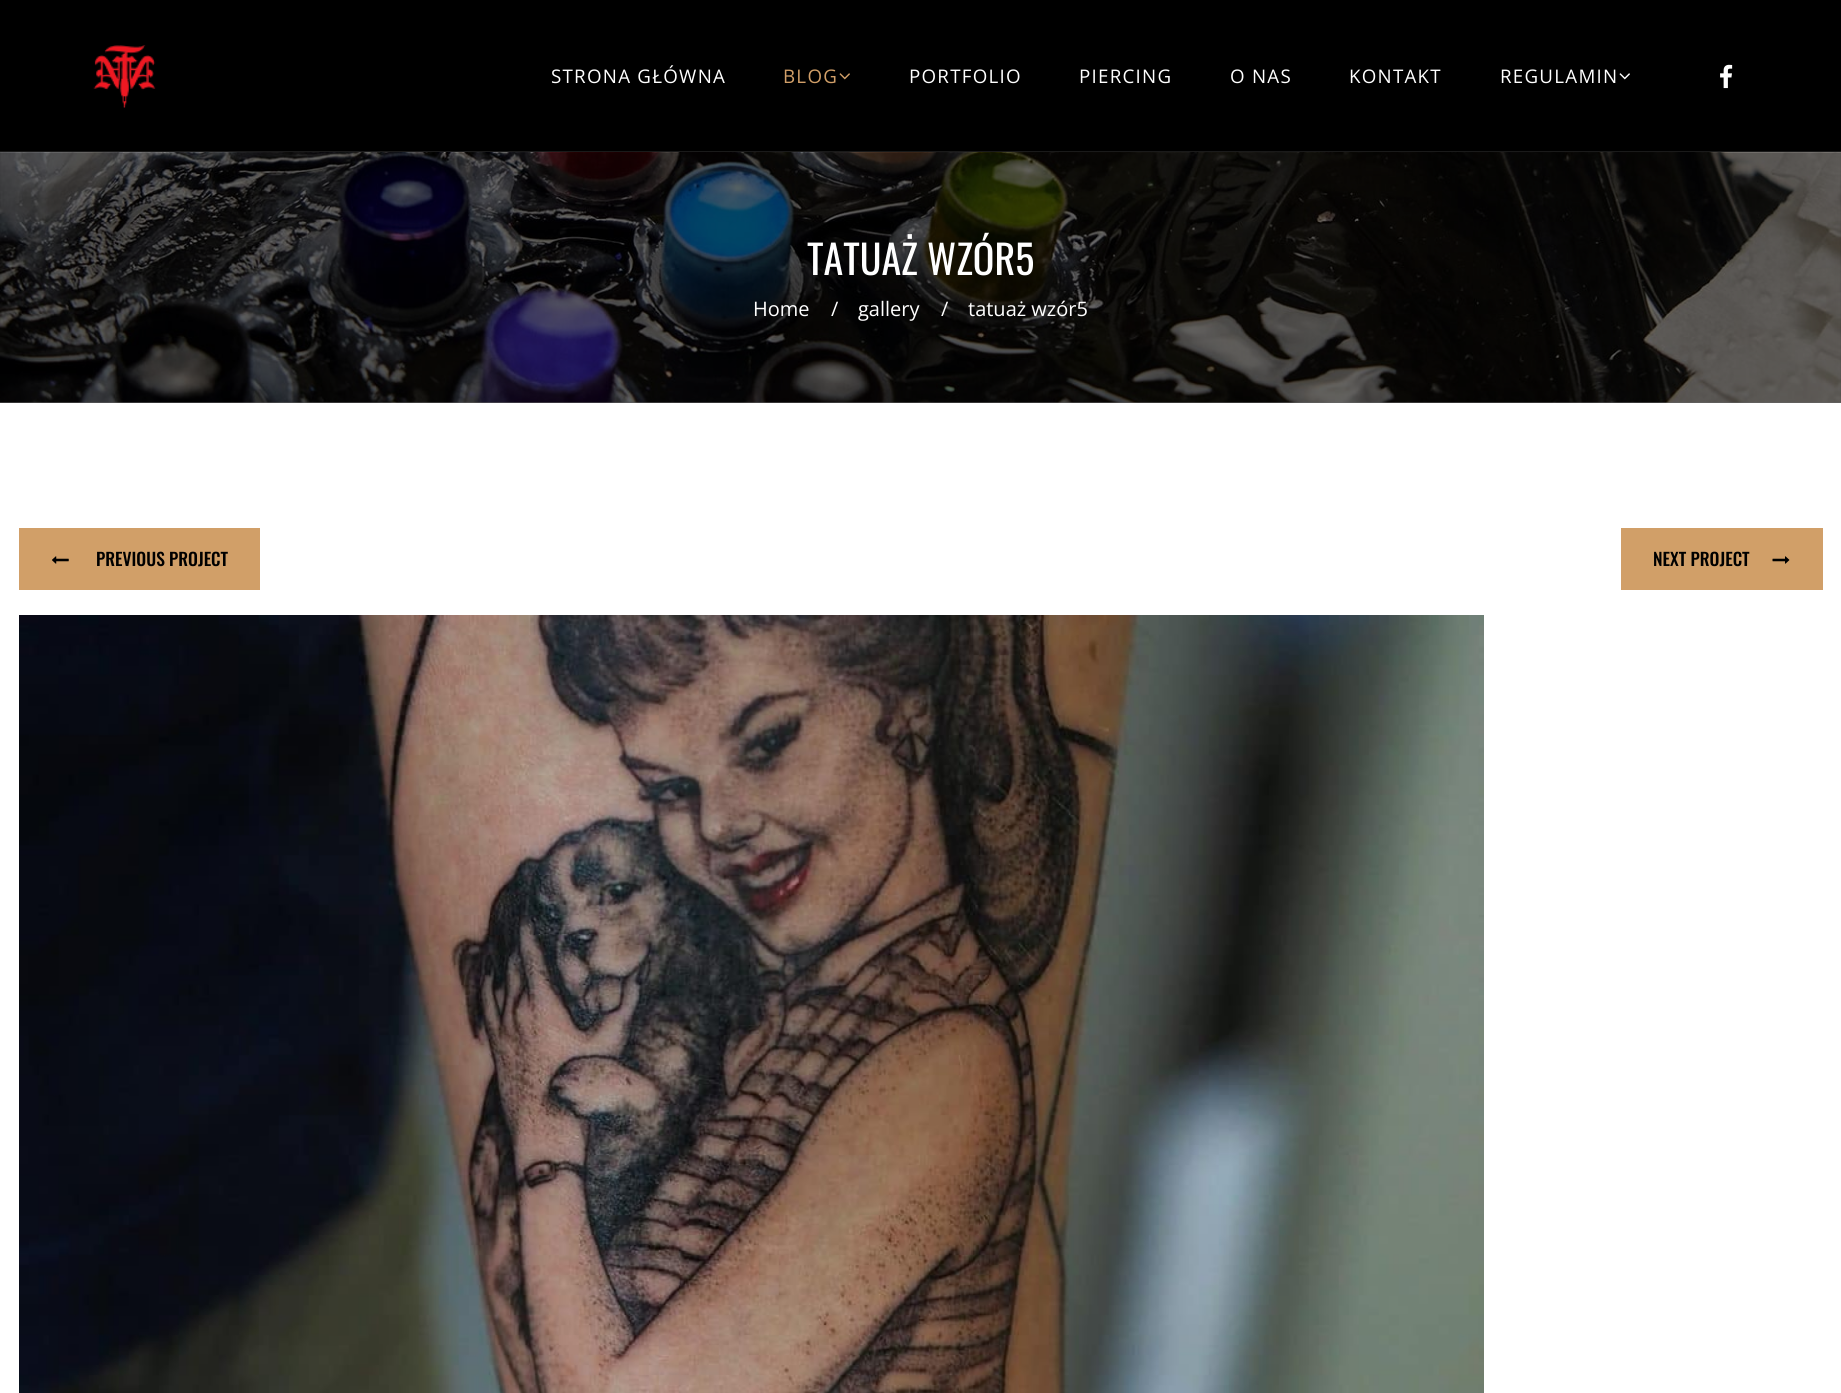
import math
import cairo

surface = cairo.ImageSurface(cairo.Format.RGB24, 1841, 1393)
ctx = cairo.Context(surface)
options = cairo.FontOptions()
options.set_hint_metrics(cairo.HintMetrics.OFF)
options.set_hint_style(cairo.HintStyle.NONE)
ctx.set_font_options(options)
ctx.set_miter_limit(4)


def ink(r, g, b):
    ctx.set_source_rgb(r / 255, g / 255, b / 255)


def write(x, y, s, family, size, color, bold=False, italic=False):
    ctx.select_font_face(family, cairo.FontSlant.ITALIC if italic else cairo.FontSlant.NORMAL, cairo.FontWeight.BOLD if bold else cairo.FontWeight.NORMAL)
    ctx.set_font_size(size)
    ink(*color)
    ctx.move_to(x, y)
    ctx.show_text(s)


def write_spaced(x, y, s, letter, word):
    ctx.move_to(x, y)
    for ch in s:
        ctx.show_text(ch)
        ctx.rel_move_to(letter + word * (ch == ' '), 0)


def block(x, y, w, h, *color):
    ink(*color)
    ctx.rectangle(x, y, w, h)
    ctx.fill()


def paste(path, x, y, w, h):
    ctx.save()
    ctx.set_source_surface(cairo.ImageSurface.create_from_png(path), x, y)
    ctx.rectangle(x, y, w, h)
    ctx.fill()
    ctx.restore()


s1 = dict(family="Oswald", size=40, color=(255, 255, 255))
s2 = dict(family="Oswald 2", size=40, color=(255, 255, 255))
s3 = dict(family="Open Sans", size=20, color=(255, 255, 255))
s4 = dict(family="Oswald Medium", size=17.5, color=(0, 0, 0))

ink(255, 255, 255)
ctx.paint()
block(0, 402, 1841, 1, 102, 102, 102)
block(0, 0, 1841, 153, 0, 0, 0)
block(0, 151, 1841, 1, 26, 26, 26)
paste("pic1.png", 93, 45, 63, 63)
ctx.select_font_face("Open Sans")
ctx.set_font_size(18.75)
ink(255, 255, 255)
write_spaced(551, 83, "STRONA GŁÓWNA", 1.25, 0)
ink(209, 159, 104)
write_spaced(783, 83, "BLOG", 1.25, 0)
paste("pic2.png", 839, 73, 11, 7)
ink(255, 255, 255)
write_spaced(909, 83, "PORTFOLIO", 1.25, 0)
write_spaced(1079, 83, "PIERCING", 1.25, 0)
write_spaced(1230, 83, "O NAS", 1.25, 0)
write_spaced(1349, 83, "KONTAKT", 1.25, 0)
write_spaced(1500, 83, "REGULAMIN", 1.25, 0)
paste("pic3.png", 1619, 73, 11, 7)
paste("pic4.png", 1720, 64, 13, 25)
paste("pic5.png", 0, 152, 1841, 251)
write(807, 275, "TATUA", **s1)
write(901, 275, "Ż", **s2)
write(927, 275, "WZÓR5", **s1)
write(753, 316, "Home", **s3)
write(831, 316, "/", **s3)
write(858, 316, "gallery", **s3)
write(941, 316, "/", **s3)
write(968, 316, "tatuaż wzór5", **s3)
block(19, 528, 241, 62, 209, 159, 104)
paste("pic6.png", 52, 556, 17, 8)
write(96, 566, "PREVIOUS PROJECT", **s4)
block(1621, 528, 202, 62, 209, 159, 104)
write(1653, 566, "NEXT PROJECT", **s4)
paste("pic7.png", 1772, 556, 18, 8)
paste("pic8.png", 19, 615, 1465, 778)
surface.write_to_png("screenshot.png")
